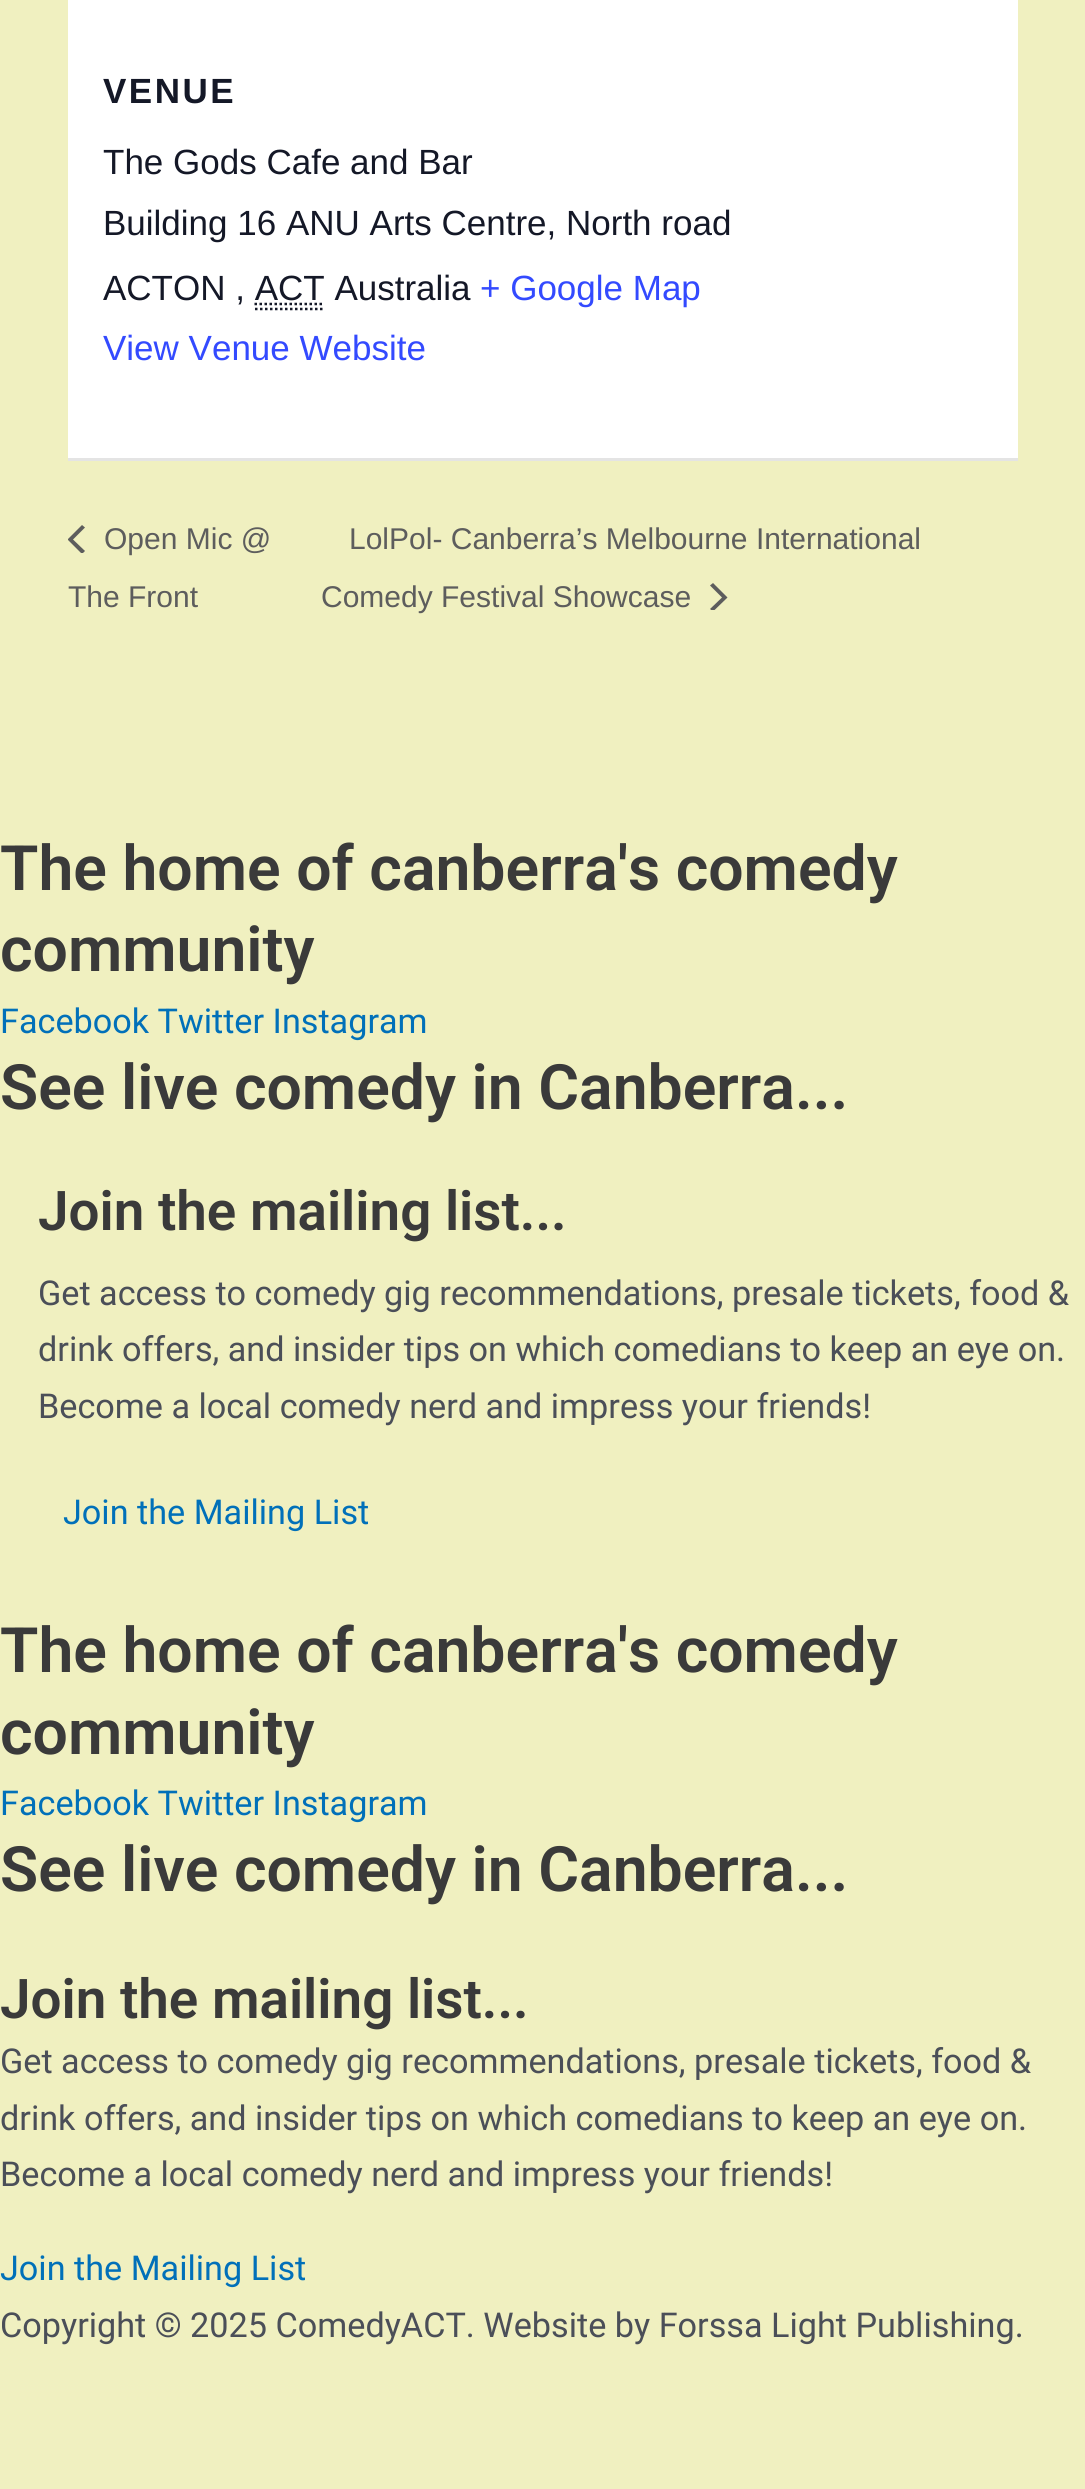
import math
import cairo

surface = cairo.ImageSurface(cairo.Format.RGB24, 1085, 2489)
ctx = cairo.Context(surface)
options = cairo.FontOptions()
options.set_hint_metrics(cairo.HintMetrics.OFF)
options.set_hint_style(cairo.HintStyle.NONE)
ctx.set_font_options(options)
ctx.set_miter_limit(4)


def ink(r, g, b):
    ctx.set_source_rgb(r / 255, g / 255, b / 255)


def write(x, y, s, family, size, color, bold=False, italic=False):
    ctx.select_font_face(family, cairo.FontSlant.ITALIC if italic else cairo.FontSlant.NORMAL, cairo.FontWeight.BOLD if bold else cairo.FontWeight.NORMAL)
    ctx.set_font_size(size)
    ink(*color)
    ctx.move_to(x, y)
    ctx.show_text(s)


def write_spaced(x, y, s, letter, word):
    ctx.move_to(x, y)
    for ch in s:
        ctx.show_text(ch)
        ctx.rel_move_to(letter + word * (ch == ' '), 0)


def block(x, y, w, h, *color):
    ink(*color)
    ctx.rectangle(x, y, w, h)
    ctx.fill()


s1 = dict(family="Liberation Sans", size=35, color=(20, 24, 39))
s2 = dict(family="Liberation Sans", size=35, color=(51, 74, 255))
s3 = dict(family="Liberation Sans", size=30, color=(93, 93, 93))
s4 = dict(family="Roboto SemiBold", size=62.5, color=(58, 58, 58))
s5 = dict(family="Roboto", size=34.2, color=(1, 112, 185))
s6 = dict(family="Roboto SemiBold", size=54.75, color=(58, 58, 58))
s7 = dict(family="Roboto", size=34.2, color=(75, 79, 88))

ink(240, 240, 192)
ctx.paint()
block(68, 0, 950, 458, 255, 255, 255)
ctx.select_font_face("Liberation Sans", cairo.FontSlant.NORMAL, cairo.FontWeight.BOLD)
ctx.set_font_size(35)
ink(20, 24, 39)
write_spaced(103, 103, "VENUE", 2.5, 0)
write(103, 174, "The Gods Cafe and Bar", **s1)
write(103, 235, "Building 16 ANU Arts Centre, North road", **s1)
write(103, 300, "ACTON , ACT Australia", **s1)
ctx.new_path()
ctx.move_to(255, 309)
ctx.line_to(325, 309)
ctx.set_line_width(2.5)
ctx.set_dash([2.5, 2.5])
ctx.stroke()
ctx.new_path()
ctx.move_to(254.5, 304)
ctx.line_to(324.5, 304)
ctx.stroke()
write(480, 300, "+ Google Map", **s2)
write(103, 360, "View Venue Website", **s2)
block(68, 458, 950, 3, 228, 228, 228)
ctx.save()
ctx.rectangle(68, 525, 17, 28)
ctx.clip()
ink(93, 93, 93)
ctx.new_path()
ctx.move_to(85, 551)
ctx.line_to(82, 554)
ctx.line_to(67.5, 539.5)
ctx.line_to(82, 525)
ctx.line_to(85, 527.5)
ctx.line_to(73, 539.5)
ctx.close_path()
ctx.fill()
ctx.restore()
write(104, 549, "Open Mic @", **s3)
write(68, 607, "The Front", **s3)
write(349, 549, "LolPol- Canberra’s Melbourne International", **s3)
write(321, 607, "Comedy Festival Showcase", **s3)
ctx.save()
ctx.rectangle(710, 583, 18, 27)
ctx.clip()
ctx.new_path()
ctx.move_to(710, 585.5)
ctx.line_to(713, 583)
ctx.line_to(727.5, 597.5)
ctx.line_to(713, 611.5)
ctx.line_to(710, 609)
ctx.line_to(722, 597.5)
ctx.close_path()
ctx.fill()
ctx.restore()
write(0, 890, "The home of canberra's comedy", **s4)
write(0, 971, "community", **s4)
write(0, 1033, "Facebook Twitter Instagram", **s5)
write(0, 1109, "See live comedy in Canberra...", **s4)
write(38, 1230, "Join the mailing list...", **s6)
write(38, 1305, "Get access to comedy gig recommendations, presale tickets, food &", **s7)
write(38, 1361, "drink offers, and insider tips on which comedians to keep an eye on.", **s7)
write(38, 1418, "Become a local comedy nerd and impress your friends!", **s7)
write(63, 1524, "Join the Mailing List", **s5)
write(0, 1672, "The home of canberra's comedy", **s4)
write(0, 1754, "community", **s4)
write(0, 1815, "Facebook Twitter Instagram", **s5)
write(0, 1891, "See live comedy in Canberra...", **s4)
write(0, 2018, "Join the mailing list...", **s6)
write(0, 2073, "Get access to comedy gig recommendations, presale tickets, food &", **s7)
write(0, 2130, "drink offers, and insider tips on which comedians to keep an eye on.", **s7)
write(0, 2186, "Become a local comedy nerd and impress your friends!", **s7)
write(0, 2280, "Join the Mailing List", **s5)
write(0, 2337, "Copyright © 2025 ComedyACT. Website by Forssa Light Publishing.", **s7)
surface.write_to_png("screenshot.png")
